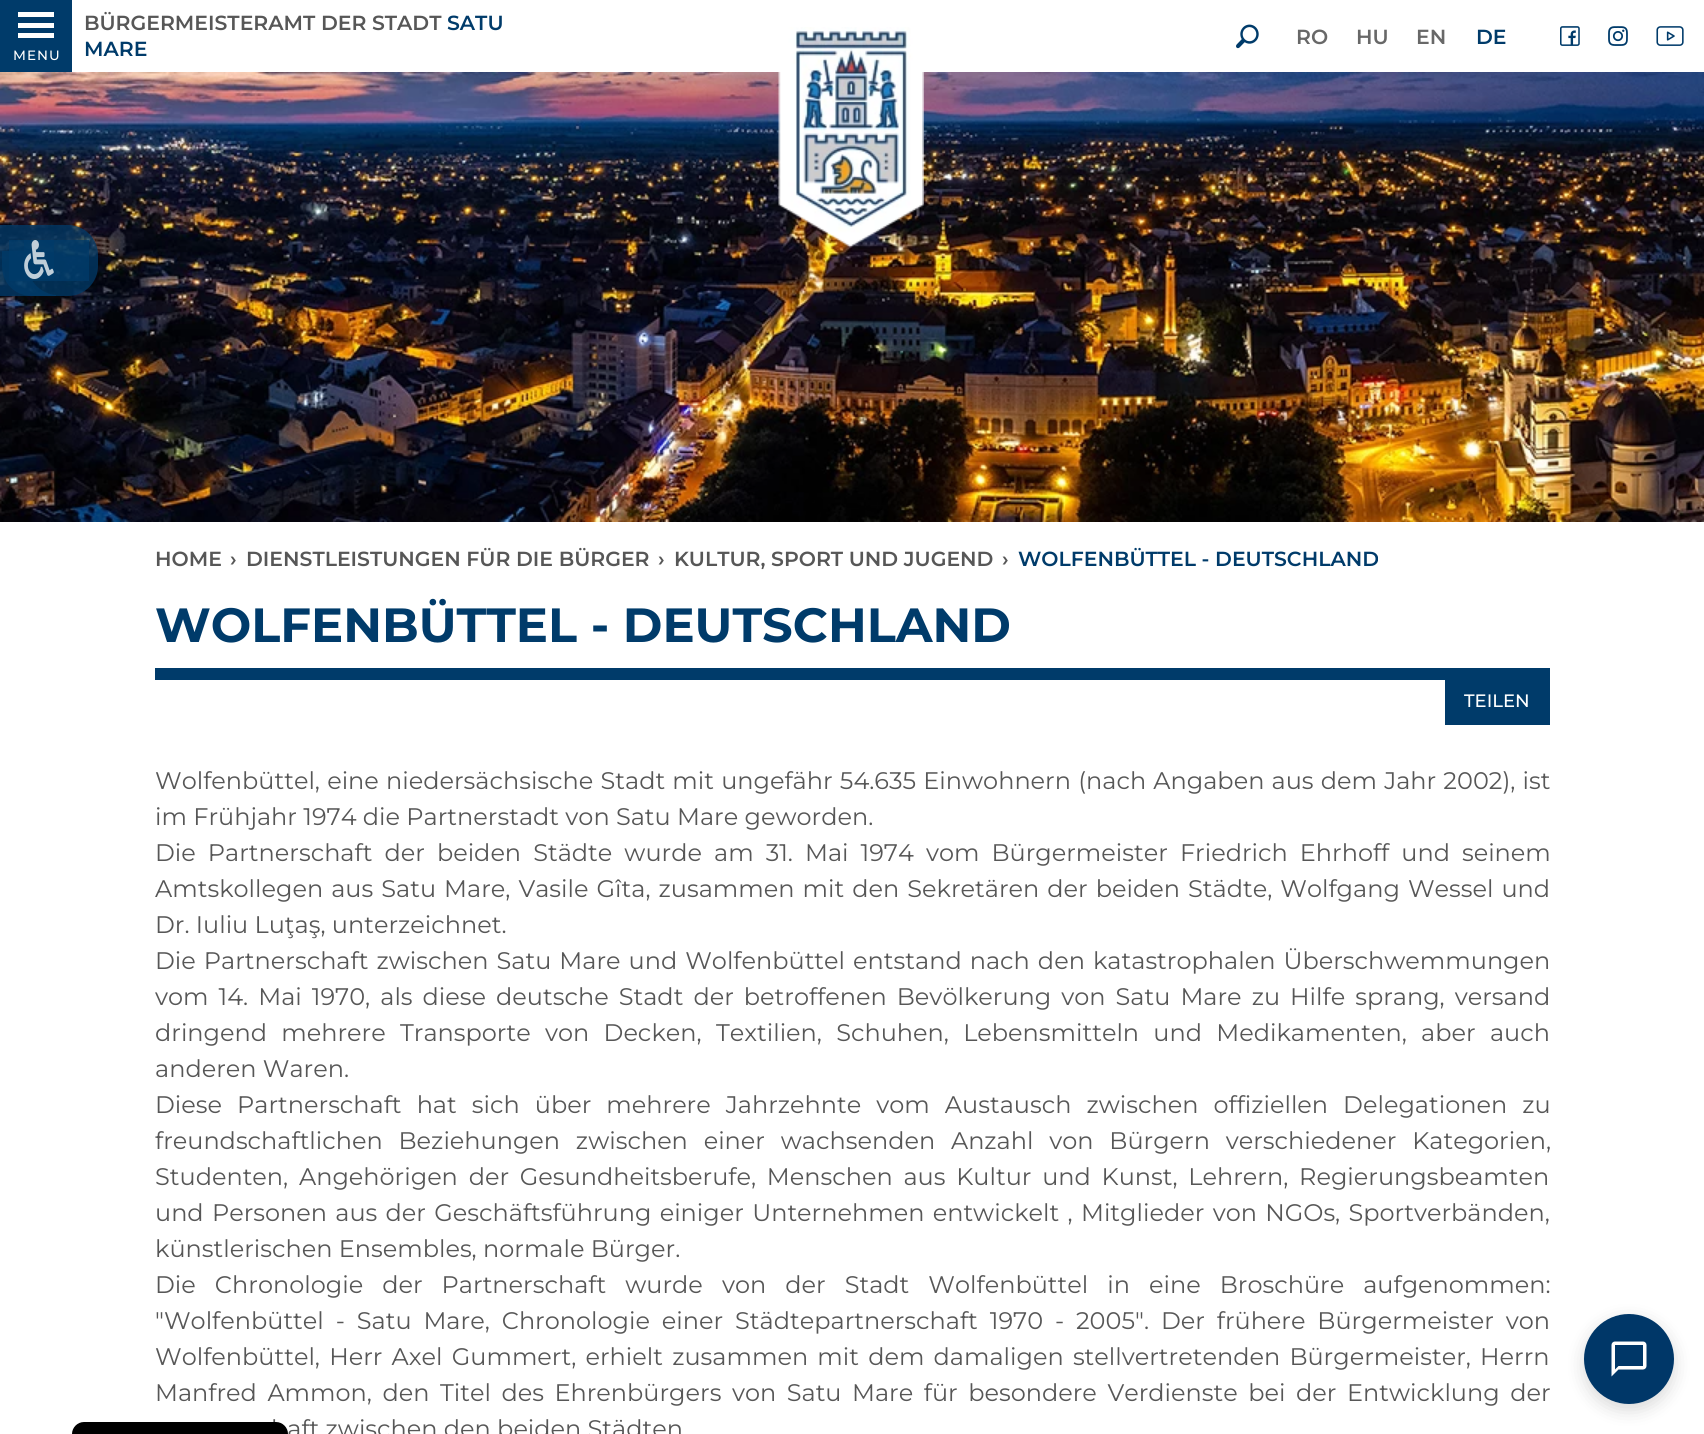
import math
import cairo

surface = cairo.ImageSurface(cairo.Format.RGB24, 1704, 1434)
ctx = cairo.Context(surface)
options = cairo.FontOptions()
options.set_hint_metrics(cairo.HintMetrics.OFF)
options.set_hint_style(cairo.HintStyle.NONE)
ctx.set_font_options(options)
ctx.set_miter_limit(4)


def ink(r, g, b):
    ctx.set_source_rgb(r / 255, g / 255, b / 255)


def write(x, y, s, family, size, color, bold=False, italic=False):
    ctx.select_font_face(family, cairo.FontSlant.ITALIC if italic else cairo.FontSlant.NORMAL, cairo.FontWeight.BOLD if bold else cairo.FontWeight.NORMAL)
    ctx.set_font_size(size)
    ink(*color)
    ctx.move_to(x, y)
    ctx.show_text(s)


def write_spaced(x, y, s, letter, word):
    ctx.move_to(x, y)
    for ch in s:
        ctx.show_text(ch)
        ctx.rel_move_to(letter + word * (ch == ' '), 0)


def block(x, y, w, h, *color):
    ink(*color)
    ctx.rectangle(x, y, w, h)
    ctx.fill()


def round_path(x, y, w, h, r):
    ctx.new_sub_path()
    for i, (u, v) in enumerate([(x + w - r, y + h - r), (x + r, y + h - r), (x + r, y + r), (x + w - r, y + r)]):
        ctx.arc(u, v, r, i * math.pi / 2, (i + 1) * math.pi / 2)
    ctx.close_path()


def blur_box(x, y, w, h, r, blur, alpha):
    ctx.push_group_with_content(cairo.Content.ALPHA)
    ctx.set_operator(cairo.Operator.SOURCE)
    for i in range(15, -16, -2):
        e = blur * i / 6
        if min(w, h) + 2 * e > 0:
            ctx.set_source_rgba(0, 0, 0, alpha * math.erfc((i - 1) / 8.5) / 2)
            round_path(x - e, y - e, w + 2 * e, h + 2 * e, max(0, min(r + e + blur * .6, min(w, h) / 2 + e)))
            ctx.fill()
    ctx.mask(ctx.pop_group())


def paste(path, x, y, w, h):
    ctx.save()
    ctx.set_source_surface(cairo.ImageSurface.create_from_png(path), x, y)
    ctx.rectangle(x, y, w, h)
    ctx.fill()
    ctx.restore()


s1 = dict(family="Montserrat Thin", size=20.4, color=(87, 87, 87))
s2 = dict(family="Montserrat Thin", size=20.4, color=(0, 59, 106))
s3 = dict(family="Montserrat Thin", size=20.4, color=(104, 104, 104))
s4 = dict(family="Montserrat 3 Thin", size=48, color=(0, 59, 106))
s5 = dict(family="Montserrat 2 Thin", size=18, color=(255, 255, 255))
s6 = dict(family="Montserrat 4 Thin", size=24, color=(87, 87, 87))

ink(255, 255, 255)
ctx.paint()
block(0, 0, 72, 72, 0, 59, 106)
block(18, 12, 36, 5, 255, 255, 255)
block(18, 23, 36, 5, 255, 255, 255)
block(18, 33, 36, 5, 255, 255, 255)
ctx.select_font_face("Montserrat 2 Thin")
ctx.set_font_size(13.5)
write_spaced(13, 60, "MENU", 1, 0)
write(84, 30, "BÜRGERMEISTERAMT DER STADT", **s1)
write(447, 30, "SATU", **s2)
write(84, 56, "MARE", **s2)
paste("pic6.png", 0, 72, 1704, 450)
paste("pic1.png", 778, 27, 146, 221)
paste("pic2.png", 1236, 24, 23, 25)
write(1296, 44, "RO", **s3)
write(1356, 44, "HU", **s3)
write(1416, 44, "EN", **s3)
write(1476, 44, "DE", **s2)
paste("pic3.png", 1560, 26, 20, 20)
paste("pic4.png", 1608, 26, 20, 20)
paste("pic5.png", 1656, 26, 28, 20)
write(155, 566, "HOME", **s1)
write(230, 566, "›", **s1)
write(246, 566, "DIENSTLEISTUNGEN FÜR DIE BÜRGER", **s1)
write(658, 566, "›", **s1)
write(674, 566, "KULTUR, SPORT UND JUGEND", **s1)
write(1002, 566, "›", **s1)
write(1018, 566, "WOLFENBÜTTEL - DEUTSCHLAND", **s2)
write(155, 642, "WOLFENBÜTTEL - DEUTSCHLAND", **s4)
block(155, 668, 1395, 12, 0, 59, 106)
block(1445, 680, 105, 45, 0, 59, 106)
write(1464, 707, "TEILEN", **s5)
ctx.select_font_face("Montserrat 4 Thin")
ctx.set_font_size(24)
ink(87, 87, 87)
write_spaced(155, 789, "Wolfenbüttel, eine niedersächsische Stadt mit ungefähr 54.635 Einwohnern (nach Angaben aus dem Jahr 2002), ist", 0, 0.9)
write(155, 825, "im Frühjahr 1974 die Partnerstadt von Satu Mare geworden.", **s6)
write_spaced(155, 861, "Die Partnerschaft der beiden Städte wurde am 31. Mai 1974 vom Bürgermeister Friedrich Ehrhoff und seinem", 0, 5.75)
write_spaced(155, 897, "Amtskollegen aus Satu Mare, Vasile Gîta, zusammen mit den Sekretären der beiden Städte, Wolfgang Wessel und", 0, 1.75)
write(155, 933, "Dr. Iuliu Luţaş, unterzeichnet.", **s6)
write_spaced(155, 969, "Die Partnerschaft zwischen Satu Mare und Wolfenbüttel entstand nach den katastrophalen Überschwemmungen", 0, 1.75)
write_spaced(155, 1005, "vom 14. Mai 1970, als diese deutsche Stadt der betroffenen Bevölkerung von Satu Mare zu Hilfe sprang, versand", 0, 3.75)
write_spaced(155, 1041, "dringend mehrere Transporte von Decken, Textilien, Schuhen, Lebensmitteln und Medikamenten, aber auch", 0, 8)
write(155, 1077, "anderen Waren.", **s6)
write_spaced(155, 1113, "Diese Partnerschaft hat sich über mehrere Jahrzehnte vom Austausch zwischen offiziellen Delegationen zu", 0, 8.75)
write_spaced(155, 1149, "freundschaftlichen Beziehungen zwischen einer wachsenden Anzahl von Bürgern verschiedener Kategorien,", 0, 9.5)
write_spaced(155, 1185, "Studenten, Angehörigen der Gesundheitsberufe, Menschen aus Kultur und Kunst, Lehrern, Regierungsbeamten", 0, 4.5)
write_spaced(155, 1221, "und Personen aus der Geschäftsführung einiger Unternehmen entwickelt , Mitglieder von NGOs, Sportverbänden,", 0, 2)
write(155, 1257, "künstlerischen Ensembles, normale Bürger.", **s6)
write_spaced(155, 1293, "Die Chronologie der Partnerschaft wurde von der Stadt Wolfenbüttel in eine Broschüre aufgenommen:", 0, 12.75)
write_spaced(155, 1329, "\"Wolfenbüttel - Satu Mare, Chronologie einer Städtepartnerschaft 1970 - 2005\". Der frühere Bürgermeister von", 0, 5.6)
write_spaced(155, 1365, "Wolfenbüttel, Herr Axel Gummert, erhielt zusammen mit dem damaligen stellvertretenden Bürgermeister, Herrn", 0, 2.9)
write_spaced(155, 1401, "Manfred Ammon, den Titel des Ehrenbürgers von Satu Mare für besondere Verdienste bei der Entwicklung der", 0, 4.25)
write(271, 1437, "haft zwischen den beiden Städten", **s6)
ctx.set_source_rgba(0, 0.231, 0.416, 0.75)
ctx.new_path()
ctx.move_to(0, 225)
ctx.line_to(68, 225)
ctx.curve_to(84.5, 225, 98, 238.5, 98, 255)
ctx.line_to(98, 266)
ctx.curve_to(98, 282.5, 84.5, 296, 68, 296)
ctx.line_to(0, 296)
ctx.close_path()
ctx.fill()
ctx.new_path()
ctx.move_to(2, 251)
ctx.line_to(2, 266)
ctx.curve_to(2, 283, 15, 296, 32, 296)
ctx.line_to(56, 296)
ctx.line_to(56, 295)
ctx.curve_to(41, 294, 28, 281, 28, 266)
ctx.line_to(28, 251)
ctx.close_path()
ctx.fill()
ctx.rectangle(9, 240, 80, 41)
ctx.fill()
ctx.rectangle(24, 240, 30, 39)
ctx.fill()
paste("pic7.png", 24, 240, 30, 39)
ink(0, 0, 0)
ctx.new_path()
ctx.move_to(84, 1422)
ctx.line_to(276, 1422)
ctx.curve_to(282.5, 1422, 288, 1427.5, 288, 1434)
ctx.line_to(288, 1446)
ctx.line_to(72, 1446)
ctx.line_to(72, 1434)
ctx.curve_to(72, 1427.5, 77.5, 1422, 84, 1422)
ctx.close_path()
ctx.fill()
ink(0, 0, 0)
blur_box(1584, 1320, 90, 90, 45, 9, 0.15)
ink(0, 55, 104)
ctx.arc(1629, 1359, 45, 0, 2 * math.pi)
ctx.fill()
paste("pic8.png", 1611, 1341, 36, 36)
surface.write_to_png("screenshot.png")
